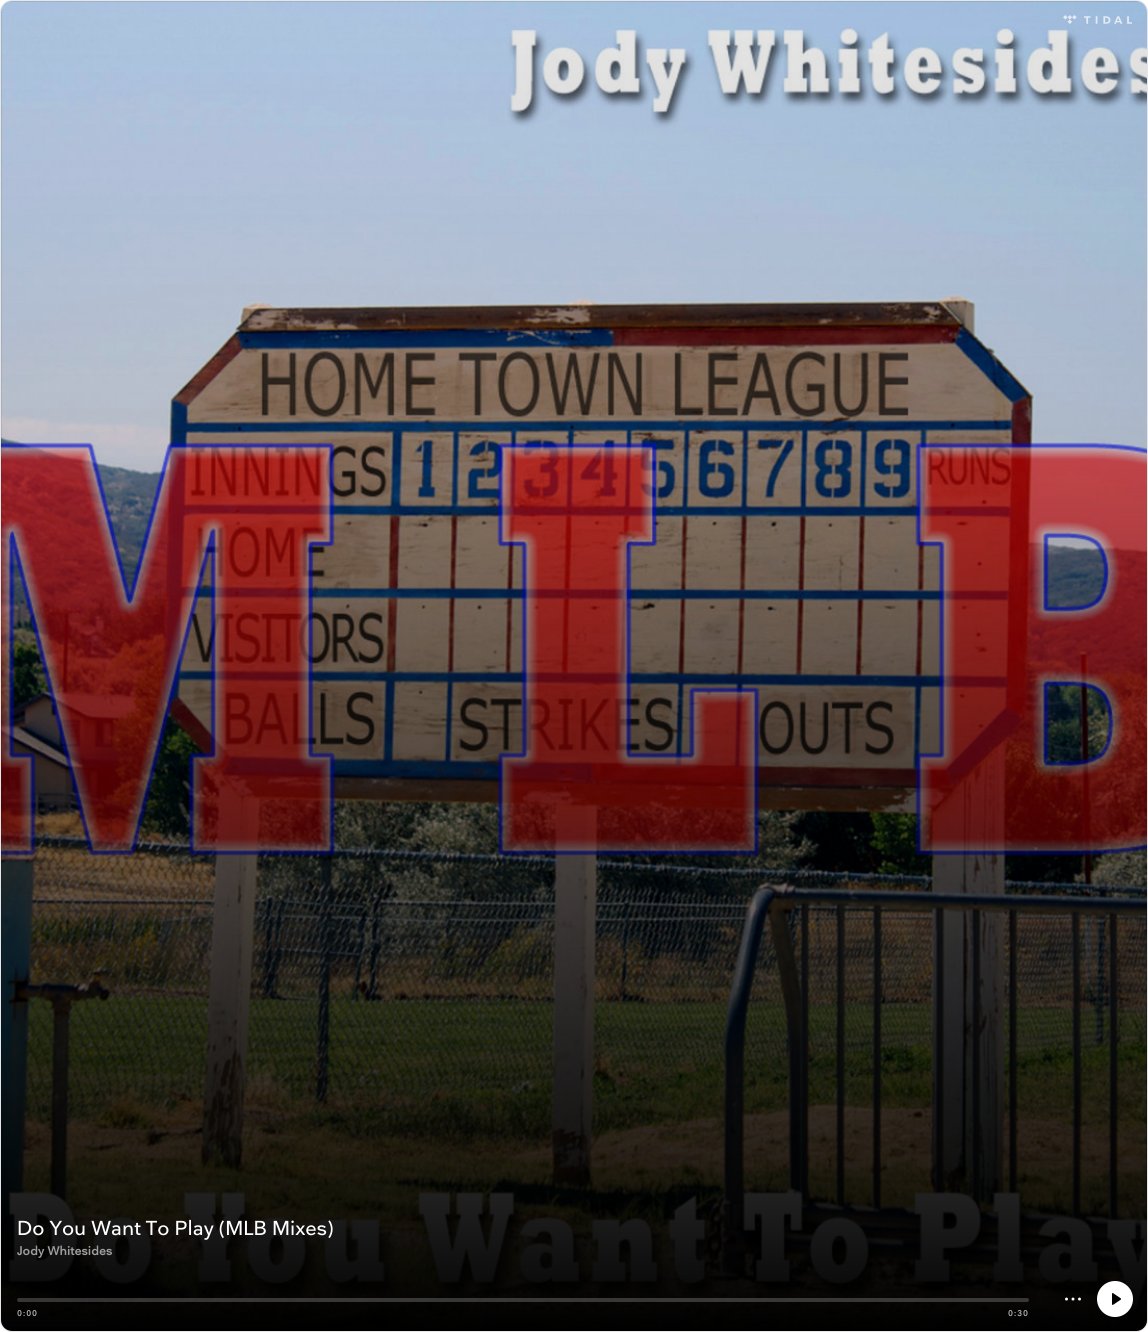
import math
import cairo

surface = cairo.ImageSurface(cairo.Format.RGB24, 1148, 1332)
ctx = cairo.Context(surface)
options = cairo.FontOptions()
options.set_hint_metrics(cairo.HintMetrics.OFF)
options.set_hint_style(cairo.HintStyle.NONE)
ctx.set_font_options(options)
ctx.set_miter_limit(4)


def ink(r, g, b):
    ctx.set_source_rgb(r / 255, g / 255, b / 255)


def write(x, y, s, family, size, color, bold=False, italic=False):
    ctx.select_font_face(family, cairo.FontSlant.ITALIC if italic else cairo.FontSlant.NORMAL, cairo.FontWeight.BOLD if bold else cairo.FontWeight.NORMAL)
    ctx.set_font_size(size)
    ink(*color)
    ctx.move_to(x, y)
    ctx.show_text(s)


def write_spaced(x, y, s, letter, word):
    ctx.move_to(x, y)
    for ch in s:
        ctx.show_text(ch)
        ctx.rel_move_to(letter + word * (ch == ' '), 0)


def round_path(x, y, w, h, r):
    ctx.new_sub_path()
    for i, (u, v) in enumerate([(x + w - r, y + h - r), (x + r, y + h - r), (x + r, y + r), (x + w - r, y + r)]):
        ctx.arc(u, v, r, i * math.pi / 2, (i + 1) * math.pi / 2)
    ctx.close_path()


def paste(path, x, y, w, h):
    ctx.save()
    ctx.set_source_surface(cairo.ImageSurface.create_from_png(path), x, y)
    ctx.rectangle(x, y, w, h)
    ctx.fill()
    ctx.restore()


s1 = dict(family="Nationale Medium", size=20, color=(255, 255, 255))

ink(255, 255, 255)
ctx.paint()
round_path(0.5, 0.5, 1147, 1331, 11.5)
ink(230, 230, 230)
ctx.set_line_width(1)
ctx.stroke()
paste("pic2.png", 1, 1, 1146, 1330)
ctx.set_source_rgba(0, 0, 0, 0.08)
ctx.set_fill_rule(cairo.FillRule.EVEN_ODD)
ctx.new_path()
ctx.move_to(1, 12)
ctx.line_to(1, 1320)
ctx.line_to(2, 1325)
ctx.line_to(2, 7)
ctx.close_path()
ctx.move_to(12, 1)
ctx.line_to(7, 2)
ctx.line_to(1141, 2)
ctx.line_to(1136, 1)
ctx.close_path()
ctx.fill()
gradient = cairo.LinearGradient(575, 1, 575, 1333)
gradient.add_color_stop_rgba(0, 0, 0, 0, 0.1)
gradient.add_color_stop_rgba(0.34, 0, 0, 0, 0.2)
gradient.add_color_stop_rgba(1, 0, 0, 0, 1)
ctx.set_source(gradient)
round_path(1, 1, 1146, 1330, 11)
ctx.fill()
paste("pic1.png", 1063, 15, 69, 9)
write(17, 1235, "Do You Want To Play (MLB Mixes)", **s1)
ctx.select_font_face("Nationale", cairo.FontSlant.NORMAL, cairo.FontWeight.BOLD)
ctx.set_font_size(12)
ink(159, 159, 159)
write_spaced(17, 1255, "Jody Whitesides", 0.2, 0)
paste("pic3.png", 1065, 1297, 16, 4)
ink(255, 255, 255)
ctx.arc(1115, 1299, 18, 0, 2 * math.pi)
ctx.fill()
paste("pic4.png", 1112, 1293, 9, 12)
ctx.set_source_rgba(1, 1, 1, 0.2)
round_path(17, 1298, 1012, 4, 2)
ctx.fill()
ctx.set_font_size(8)
ink(178, 178, 178)
write_spaced(17, 1316, "0:00", 1, 0)
write_spaced(1008, 1316, "0:30", 1, 0)
surface.write_to_png("screenshot.png")
